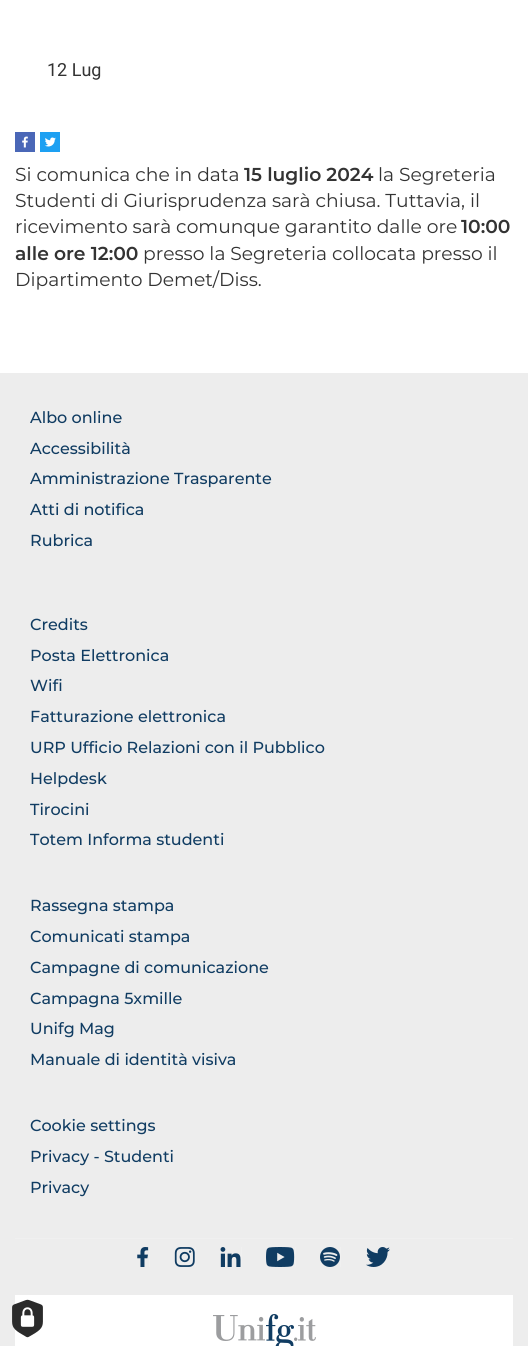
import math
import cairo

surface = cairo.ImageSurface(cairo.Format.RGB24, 528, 1346)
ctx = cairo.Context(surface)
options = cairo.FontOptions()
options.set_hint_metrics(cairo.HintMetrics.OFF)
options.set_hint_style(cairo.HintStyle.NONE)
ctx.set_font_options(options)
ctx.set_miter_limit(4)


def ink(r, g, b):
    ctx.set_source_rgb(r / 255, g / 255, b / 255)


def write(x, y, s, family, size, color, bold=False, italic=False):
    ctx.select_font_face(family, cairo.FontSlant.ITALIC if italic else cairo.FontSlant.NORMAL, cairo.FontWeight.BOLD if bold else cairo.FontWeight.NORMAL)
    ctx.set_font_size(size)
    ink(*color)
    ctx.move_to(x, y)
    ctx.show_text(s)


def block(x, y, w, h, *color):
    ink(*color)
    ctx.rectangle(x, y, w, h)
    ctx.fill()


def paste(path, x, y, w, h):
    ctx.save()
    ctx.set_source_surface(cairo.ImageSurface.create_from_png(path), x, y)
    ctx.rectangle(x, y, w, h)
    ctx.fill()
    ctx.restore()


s1 = dict(family="Roboto", size=18, color=(51, 51, 51))
s2 = dict(family="Montserrat", size=18.7, color=(51, 51, 51))
s3 = dict(family="Montserrat SemiBold", size=18.7, color=(51, 51, 51))
s4 = dict(family="Montserrat Medium", size=16, color=(16, 60, 98))

ink(255, 255, 255)
ctx.paint()
write(47, 76, "12 Lug", **s1)
paste("pic1.png", 15, 132, 20, 20)
paste("pic2.png", 40, 132, 20, 20)
write(15, 181, "Si comunica che in data", **s2)
write(244, 181, "15 luglio 2024", **s3)
write(378, 181, "la Segreteria", **s2)
write(15, 207, "Studenti di Giurisprudenza sarà chiusa. Tuttavia, il", **s2)
write(15, 233, "ricevimento sarà comunque garantito dalle ore", **s2)
write(461, 233, "10:00", **s3)
write(15, 260, "alle ore 12:00", **s3)
write(143, 260, "presso la Segreteria collocata presso il", **s2)
write(15, 286, "Dipartimento Demet/Diss.", **s2)
block(0, 373, 528, 973, 237, 237, 237)
write(30, 423, "Albo online", **s4)
write(30, 454, "Accessibilità", **s4)
write(30, 484, "Amministrazione Trasparente", **s4)
write(30, 515, "Atti di notifica", **s4)
write(30, 546, "Rubrica", **s4)
block(15, 1295, 498, 51, 255, 255, 255)
paste("pic3.png", 12, 1299, 31, 39)
write(30, 630, "Credits", **s4)
write(30, 661, "Posta Elettronica", **s4)
write(30, 691, "Wifi", **s4)
write(30, 722, "Fatturazione elettronica", **s4)
write(30, 753, "URP Ufficio Relazioni con il Pubblico", **s4)
write(30, 784, "Helpdesk", **s4)
write(30, 815, "Tirocini", **s4)
write(30, 845, "Totem Informa studenti", **s4)
write(30, 911, "Rassegna stampa", **s4)
write(30, 942, "Comunicati stampa", **s4)
write(30, 973, "Campagne di comunicazione", **s4)
write(30, 1004, "Campagna 5xmille", **s4)
write(30, 1034, "Unifg Mag", **s4)
write(30, 1065, "Manuale di identità visiva", **s4)
write(30, 1131, "Cookie settings", **s4)
write(30, 1162, "Privacy - Studenti", **s4)
write(30, 1193, "Privacy", **s4)
block(15, 1238, 498, 1, 240, 240, 240)
block(149, 1247, 1, 20, 240, 240, 240)
paste("pic4.png", 137, 1247, 12, 20)
block(195, 1247, 1, 20, 240, 240, 240)
paste("pic5.png", 174, 1247, 21, 20)
block(241, 1247, 1, 20, 240, 240, 240)
paste("pic6.png", 220, 1247, 21, 20)
block(295, 1247, 1, 20, 240, 240, 240)
paste("pic7.png", 266, 1247, 29, 20)
block(340, 1247, 1, 20, 240, 240, 240)
paste("pic8.png", 320, 1247, 20, 20)
paste("pic9.png", 366, 1247, 24, 20)
paste("pic10.png", 213, 1314, 103, 32)
surface.write_to_png("screenshot.png")
